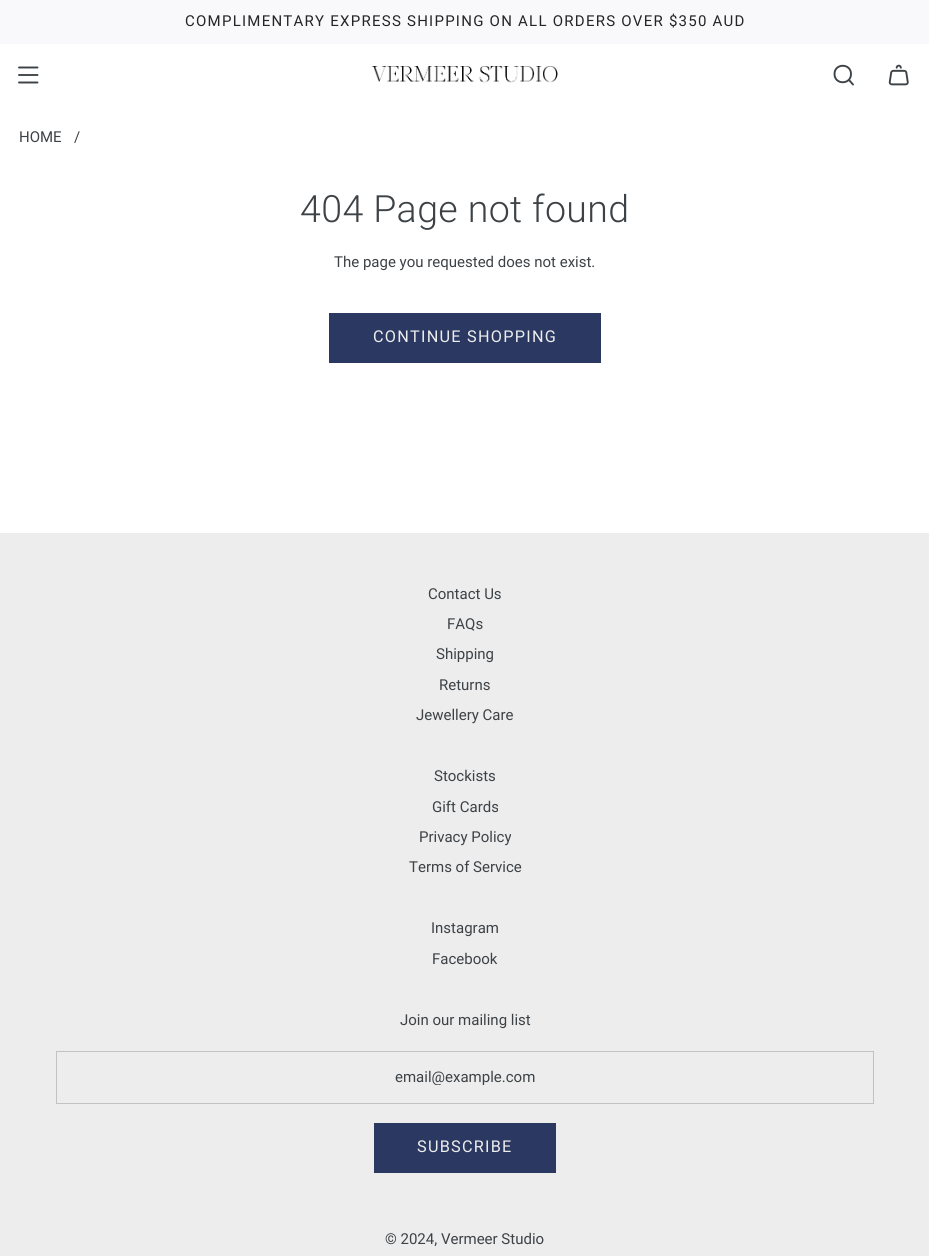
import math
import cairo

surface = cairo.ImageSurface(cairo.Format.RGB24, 929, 1256)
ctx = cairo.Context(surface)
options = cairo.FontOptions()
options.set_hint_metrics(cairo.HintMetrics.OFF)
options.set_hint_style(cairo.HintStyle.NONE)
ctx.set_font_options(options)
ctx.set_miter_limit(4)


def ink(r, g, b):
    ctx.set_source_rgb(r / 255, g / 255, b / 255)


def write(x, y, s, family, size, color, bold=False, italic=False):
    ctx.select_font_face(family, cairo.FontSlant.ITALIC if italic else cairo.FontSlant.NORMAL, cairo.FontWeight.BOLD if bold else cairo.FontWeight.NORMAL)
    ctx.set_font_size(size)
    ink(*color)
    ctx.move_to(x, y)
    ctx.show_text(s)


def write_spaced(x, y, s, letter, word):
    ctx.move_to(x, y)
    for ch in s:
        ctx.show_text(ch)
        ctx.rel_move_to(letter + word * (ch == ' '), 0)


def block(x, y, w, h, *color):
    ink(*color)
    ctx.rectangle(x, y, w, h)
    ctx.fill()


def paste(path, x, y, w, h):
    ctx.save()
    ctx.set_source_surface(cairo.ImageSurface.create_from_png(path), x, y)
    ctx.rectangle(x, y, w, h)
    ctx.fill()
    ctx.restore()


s1 = dict(family="Roboto", size=15, color=(61, 66, 70))

ink(255, 255, 255)
ctx.paint()
block(0, 0, 929, 44, 249, 249, 251)
ctx.select_font_face("Roboto")
ctx.set_font_size(15)
ink(38, 36, 40)
write_spaced(185, 26, "COMPLIMENTARY EXPRESS SHIPPING ON ALL ORDERS OVER $350 AUD", 1.25, 0)
ctx.new_path()
ctx.move_to(19, 67.5)
ctx.line_to(37.5, 67.5)
ctx.move_to(19, 75)
ctx.line_to(37.5, 75)
ctx.move_to(19, 82.5)
ctx.line_to(37.5, 82.5)
ink(61, 66, 70)
ctx.set_line_width(1.9)
ctx.set_line_cap(cairo.LineCap.ROUND)
ctx.set_line_join(cairo.LineJoin.ROUND)
ctx.stroke()
paste("pic1.png", 371, 66, 187, 17)
ctx.new_path()
ctx.move_to(849, 80)
ctx.line_to(853, 84.5)
ctx.move_to(834.5, 74)
ctx.curve_to(834.5, 85, 851, 85, 851, 74)
ctx.curve_to(851, 63, 834.5, 63, 834.5, 74)
ctx.close_path()
ctx.stroke()
paste("pic2.png", 888, 64, 21, 22)
write(19, 142, "HOME", **s1)
write(74, 142, "/", **s1)
ctx.select_font_face("Roboto Light")
ctx.set_font_size(37.5)
write_spaced(300, 222, "404 Page not found", 0.4, 0)
write(334, 267, "The page you requested does not exist.", **s1)
block(329, 313, 272, 50, 43, 57, 98)
ctx.set_font_size(16.25)
ink(237, 237, 237)
write_spaced(373, 342, "CONTINUE SHOPPING", 1.25, 0)
block(0, 533, 929, 723, 237, 237, 237)
write(428, 599, "Contact Us", **s1)
write(447, 629, "FAQs", **s1)
write(436, 659, "Shipping", **s1)
write(439, 690, "Returns", **s1)
write(416, 720, "Jewellery Care", **s1)
write(434, 781, "Stockists", **s1)
write(432, 812, "Gift Cards", **s1)
write(419, 842, "Privacy Policy", **s1)
write(409, 872, "Terms of Service", **s1)
write(431, 933, "Instagram", **s1)
write(432, 964, "Facebook", **s1)
write(400, 1025, "Join our mailing list", **s1)
ctx.rectangle(56.5, 1051.5, 817, 52)
ink(194, 194, 194)
ctx.set_line_width(1)
ctx.set_line_cap(cairo.LineCap.BUTT)
ctx.set_line_join(cairo.LineJoin.MITER)
ctx.stroke()
ctx.save()
ctx.rectangle(70, 1068, 790, 17)
ctx.clip()
write(395, 1082, "email@example.com", **s1)
ctx.restore()
block(374, 1123, 182, 50, 43, 57, 98)
ctx.set_font_size(16.25)
ink(237, 237, 237)
write_spaced(417, 1152, "SUBSCRIBE", 1.25, 0)
write(385, 1244, "© 2024, Vermeer Studio", **s1)
surface.write_to_png("screenshot.png")
